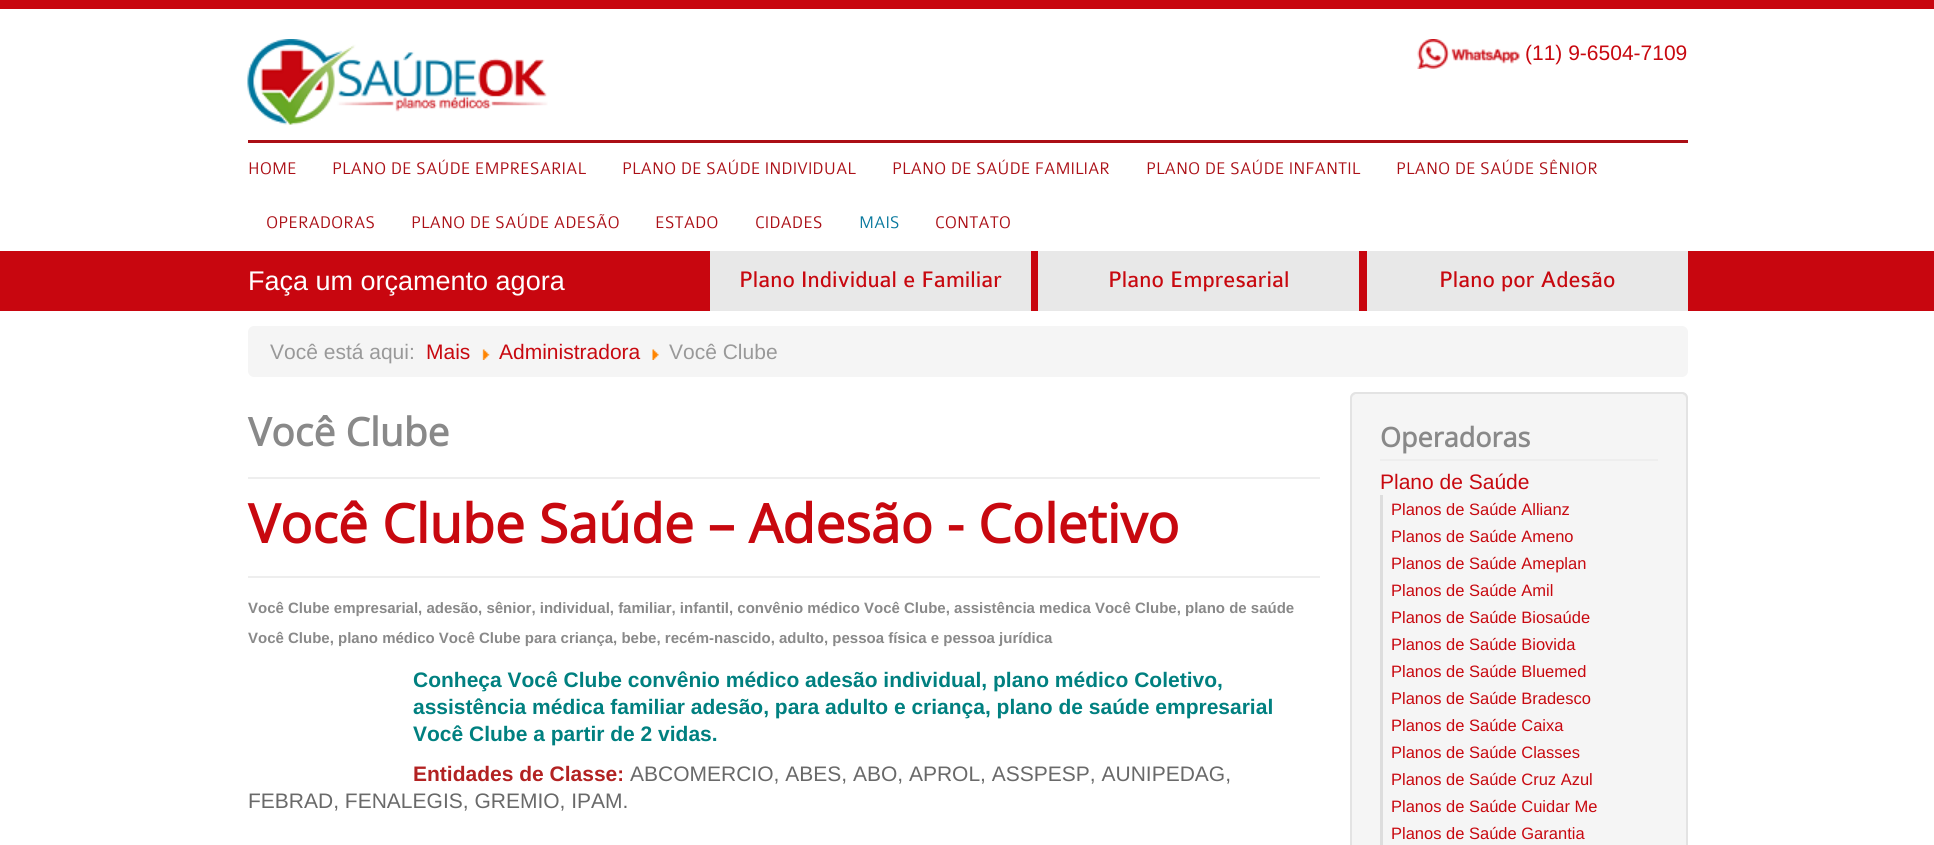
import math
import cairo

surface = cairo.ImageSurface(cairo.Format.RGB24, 1934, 845)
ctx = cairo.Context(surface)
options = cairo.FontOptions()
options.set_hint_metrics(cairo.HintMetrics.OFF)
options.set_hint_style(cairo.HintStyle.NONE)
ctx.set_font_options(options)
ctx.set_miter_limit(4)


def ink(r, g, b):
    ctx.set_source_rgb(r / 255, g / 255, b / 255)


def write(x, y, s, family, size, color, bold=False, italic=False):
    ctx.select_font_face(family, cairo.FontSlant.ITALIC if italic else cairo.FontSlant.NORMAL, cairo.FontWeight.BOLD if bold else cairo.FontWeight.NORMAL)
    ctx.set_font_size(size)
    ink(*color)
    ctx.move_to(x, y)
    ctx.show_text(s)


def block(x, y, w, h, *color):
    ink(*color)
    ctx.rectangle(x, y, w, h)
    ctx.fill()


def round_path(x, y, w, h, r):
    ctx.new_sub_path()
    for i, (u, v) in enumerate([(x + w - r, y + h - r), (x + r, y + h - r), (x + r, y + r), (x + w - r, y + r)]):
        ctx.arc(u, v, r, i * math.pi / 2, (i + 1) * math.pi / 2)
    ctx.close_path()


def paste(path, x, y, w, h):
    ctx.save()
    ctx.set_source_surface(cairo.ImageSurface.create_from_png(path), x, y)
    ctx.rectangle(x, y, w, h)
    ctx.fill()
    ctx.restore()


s1 = dict(family="Liberation Sans", size=21, color=(200, 8, 15))
s2 = dict(family="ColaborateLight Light", size=18, color=(171, 15, 22))
s3 = dict(family="ColaborateLight Light", size=18, color=(9, 121, 158))
s4 = dict(family="Liberation Sans", size=27, color=(255, 255, 255))
s5 = dict(family="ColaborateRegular", size=24, color=(200, 8, 15))
s6 = dict(family="Liberation Sans", size=21, color=(153, 153, 153))
s7 = dict(family="Open Sans", size=39, color=(137, 137, 137), bold=True)
s8 = dict(family="Open Sans", size=53.6, color=(200, 8, 15), bold=True)
s9 = dict(family="Liberation Sans", size=15, color=(137, 137, 137), bold=True)
s10 = dict(family="Liberation Sans", size=21, color=(0, 128, 128), bold=True)
s11 = dict(family="Liberation Sans", size=21, color=(178, 34, 34), bold=True)
s12 = dict(family="Liberation Sans", size=21, color=(105, 105, 105))
s13 = dict(family="Open Sans", size=27, color=(137, 137, 137), bold=True)
s14 = dict(family="Liberation Sans", size=16.5, color=(200, 8, 15))

ink(255, 255, 255)
ctx.paint()
block(0, 0, 1934, 9, 200, 6, 15)
paste("pic1.png", 247, 39, 301, 86)
paste("pic2.png", 1417, 39, 103, 30)
write(1525, 60, "(11) 9-6504-7109", **s1)
block(248, 140, 1440, 3, 171, 15, 22)
write(248, 174, "HOME", **s2)
write(332, 174, "PLANO DE SAÚDE EMPRESARIAL", **s2)
write(622, 174, "PLANO DE SAÚDE INDIVIDUAL", **s2)
write(892, 174, "PLANO DE SAÚDE FAMILIAR", **s2)
write(1146, 174, "PLANO DE SAÚDE INFANTIL", **s2)
write(1396, 174, "PLANO DE SAÚDE SÊNIOR", **s2)
write(266, 228, "OPERADORAS", **s2)
write(411, 228, "PLANO DE SAÚDE ADESÃO", **s2)
write(655, 228, "ESTADO", **s2)
write(755, 228, "CIDADES", **s2)
write(859, 228, "MAIS", **s3)
write(935, 228, "CONTATO", **s2)
block(0, 251, 1934, 60, 200, 6, 15)
write(248, 290, "Faça um orçamento agora", **s4)
block(710, 251, 321, 60, 232, 232, 232)
write(739, 287, "Plano Individual e Familiar", **s5)
block(1038, 251, 321, 60, 232, 232, 232)
write(1108, 287, "Plano Empresarial", **s5)
block(1367, 251, 321, 60, 232, 232, 232)
write(1439, 287, "Plano por Adesão", **s5)
ink(245, 245, 245)
round_path(248, 326, 1440, 51, 6)
ctx.fill()
write(270, 359, "Você está aqui:", **s6)
write(426, 359, "Mais", **s1)
paste("pic3.png", 482, 349, 8, 11)
write(499, 359, "Administradora", **s1)
paste("pic4.png", 652, 349, 7, 11)
write(669, 359, "Você Clube", **s6)
block(248, 477, 1072, 2, 238, 238, 238)
write(248, 446, "Você Clube", **s7)
block(248, 576, 1072, 2, 238, 238, 238)
write(248, 543, "Você Clube Saúde – Adesão - Coletivo", **s8)
write(248, 613, "Você Clube empresarial, adesão, sênior, individual, familiar, infantil, convênio médico Você Clube, assistência medica Você Clube, plano de saúde", **s9)
write(248, 643, "Você Clube, plano médico Você Clube para criança, bebe, recém-nascido, adulto, pessoa física e pessoa jurídica", **s9)
write(413, 687, "Conheça Você Clube convênio médico adesão individual, plano médico Coletivo,", **s10)
write(413, 714, "assistência médica familiar adesão, para adulto e criança, plano de saúde empresarial", **s10)
write(413, 741, "Você Clube a partir de 2 vidas.", **s10)
write(413, 781, "Entidades de Classe:", **s11)
write(630, 781, "ABCOMERCIO, ABES, ABO, APROL, ASSPESP, AUNIPEDAG,", **s12)
write(248, 808, "FEBRAD, FENALEGIS, GREMIO, IPAM.", **s12)
ink(245, 245, 245)
round_path(1350, 392, 338, 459, 6)
ctx.fill()
ink(233, 233, 233)
ctx.new_path()
ctx.move_to(1356, 394)
ctx.line_to(1682, 394)
ctx.curve_to(1684, 394, 1686, 397, 1686, 399)
ctx.curve_to(1686, 396, 1684, 393, 1681, 393)
ctx.line_to(1357, 393)
ctx.curve_to(1354, 393, 1352, 396, 1352, 399)
ctx.curve_to(1352, 397, 1354, 394, 1356, 394)
ctx.close_path()
ctx.fill()
round_path(1351, 393, 336, 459, 5)
ink(227, 227, 227)
ctx.stroke()
block(1380, 459, 278, 2, 238, 238, 238)
write(1380, 447, "Operadoras", **s13)
write(1380, 489, "Plano de Saúde", **s1)
block(1380, 495, 3, 350, 221, 221, 221)
write(1391, 515, "Planos de Saúde Allianz", **s14)
write(1391, 542, "Planos de Saúde Ameno", **s14)
write(1391, 569, "Planos de Saúde Ameplan", **s14)
write(1391, 596, "Planos de Saúde Amil", **s14)
write(1391, 623, "Planos de Saúde Biosaúde", **s14)
write(1391, 650, "Planos de Saúde Biovida", **s14)
write(1391, 677, "Planos de Saúde Bluemed", **s14)
write(1391, 704, "Planos de Saúde Bradesco", **s14)
write(1391, 731, "Planos de Saúde Caixa", **s14)
write(1391, 758, "Planos de Saúde Classes", **s14)
write(1391, 785, "Planos de Saúde Cruz Azul", **s14)
write(1391, 812, "Planos de Saúde Cuidar Me", **s14)
write(1391, 839, "Planos de Saúde Garantia", **s14)
surface.write_to_png("screenshot.png")
